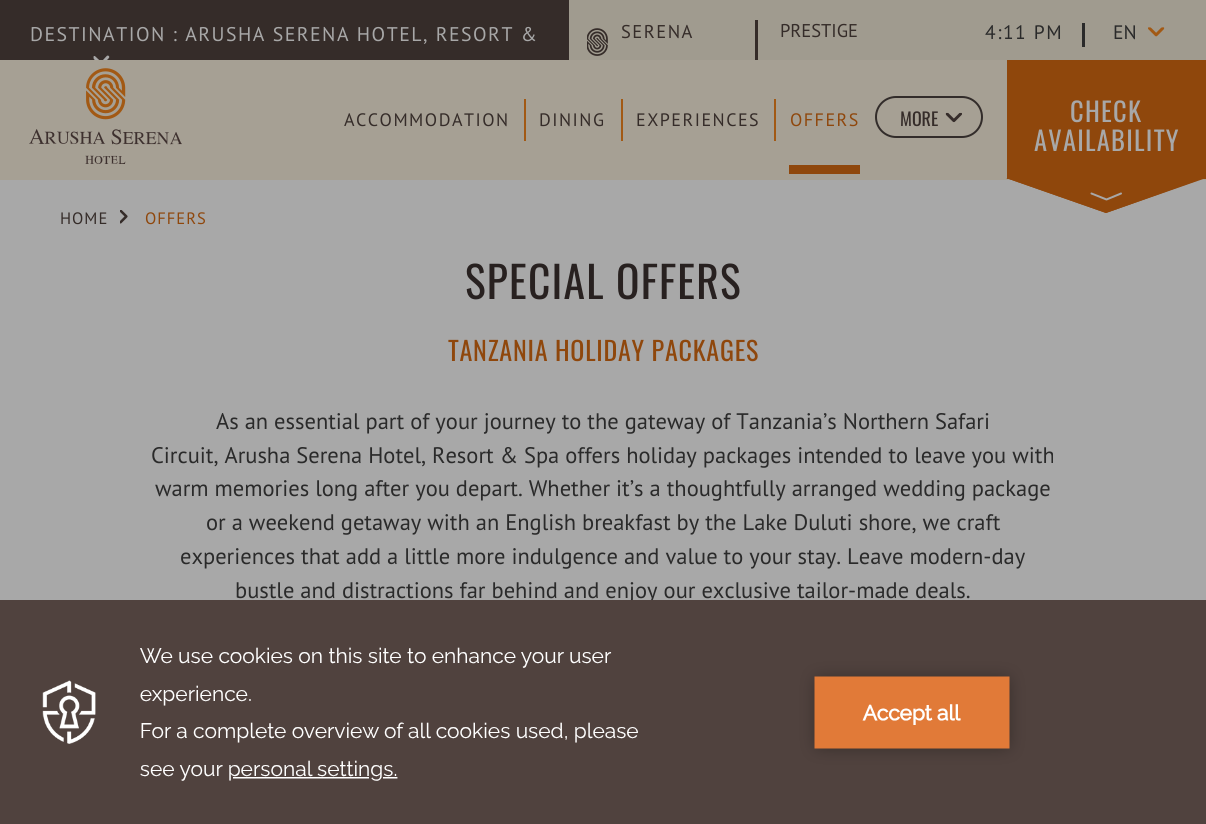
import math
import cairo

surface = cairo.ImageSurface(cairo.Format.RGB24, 1206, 824)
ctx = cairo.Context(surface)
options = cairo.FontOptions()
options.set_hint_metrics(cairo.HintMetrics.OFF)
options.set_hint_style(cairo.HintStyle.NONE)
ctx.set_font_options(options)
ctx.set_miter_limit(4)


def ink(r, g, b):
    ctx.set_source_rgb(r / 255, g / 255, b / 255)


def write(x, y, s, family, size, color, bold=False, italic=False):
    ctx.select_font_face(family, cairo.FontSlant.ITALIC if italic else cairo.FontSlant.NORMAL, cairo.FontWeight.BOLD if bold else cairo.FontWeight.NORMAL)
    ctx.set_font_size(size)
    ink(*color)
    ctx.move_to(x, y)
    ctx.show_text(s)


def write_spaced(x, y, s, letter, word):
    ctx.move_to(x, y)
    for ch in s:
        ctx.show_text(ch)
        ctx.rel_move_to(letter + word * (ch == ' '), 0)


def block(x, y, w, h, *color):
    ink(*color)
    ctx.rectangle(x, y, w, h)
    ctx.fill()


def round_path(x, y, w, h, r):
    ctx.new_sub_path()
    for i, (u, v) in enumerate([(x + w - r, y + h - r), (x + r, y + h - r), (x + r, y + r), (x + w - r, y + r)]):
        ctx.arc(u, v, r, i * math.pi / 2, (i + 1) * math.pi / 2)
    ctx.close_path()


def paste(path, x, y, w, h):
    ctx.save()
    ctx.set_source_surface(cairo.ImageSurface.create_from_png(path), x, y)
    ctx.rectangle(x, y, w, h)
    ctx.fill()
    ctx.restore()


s1 = dict(family="PT Sans", size=18.5, color=(53, 44, 41))
s2 = dict(family="PT Sans", size=19.5, color=(42, 42, 42))
s3 = dict(family="Oswald", size=18, color=(53, 44, 41))
s4 = dict(family="PT Sans", size=22.5, color=(42, 42, 42))

ink(168, 168, 168)
ctx.paint()
block(569, 0, 637, 60, 160, 155, 143)
block(0, 0, 569, 60, 53, 44, 41)
ctx.select_font_face("PT Sans")
ctx.set_font_size(19.8)
ink(168, 168, 168)
write_spaced(30, 41, "DESTINATION : ARUSHA SERENA HOTEL, RESORT &", 1.5, 0)
paste("pic1.png", 93, 55, 17, 5)
paste("pic2.png", 587, 28, 21, 28)
ctx.set_font_size(18.5)
ink(53, 44, 41)
write_spaced(621, 38, "SERENA", 1.5, 0)
block(755, 20, 3, 40, 53, 44, 41)
write(780, 37, "PRESTIGE", **s1)
block(1082, 23, 3, 24, 42, 42, 42)
ctx.set_font_size(19.5)
write_spaced(985, 39, "4:11 PM", 1.5, 0)
write(1113, 39, "EN", **s2)
paste("pic3.png", 1148, 27, 17, 10)
block(0, 60, 1206, 120, 166, 160, 148)
paste("pic4.png", 29, 68, 153, 96)
ctx.set_font_size(18)
ink(53, 44, 41)
write_spaced(344, 126, "ACCOMMODATION", 1.5, 0)
block(524, 99, 2, 42, 162, 89, 20)
ink(53, 44, 41)
write_spaced(539, 126, "DINING", 1.5, 0)
block(621, 99, 2, 42, 162, 89, 20)
ink(53, 44, 41)
write_spaced(636, 126, "EXPERIENCES", 1.5, 0)
block(774, 99, 2, 42, 162, 89, 20)
ink(143, 71, 12)
write_spaced(790, 126, "OFFERS", 1.5, 0)
block(789, 165, 71, 9, 143, 71, 12)
round_path(876, 97, 106, 40, 20)
ink(50, 44, 42)
ctx.stroke()
write(900, 126, "MORE", **s3)
paste("pic5.png", 945, 112, 17, 11)
block(1007, 60, 199, 119, 143, 71, 12)
ctx.set_font_size(26.5)
ink(168, 168, 168)
write_spaced(1070, 122, "CHECK", 1.25, 0)
write_spaced(1034, 151, "AVAILABILITY", 1.25, 0)
ink(143, 71, 12)
ctx.new_path()
ctx.move_to(1006, 178)
ctx.line_to(1204, 178)
ctx.line_to(1106, 213)
ctx.close_path()
ctx.fill()
ctx.save()
ctx.rectangle(1007, 179, 199, 34)
ctx.clip()
ctx.new_path()
ctx.move_to(1106, 213)
ctx.line_to(1006, 178)
ctx.line_to(1206, 178)
ctx.close_path()
ctx.fill()
ctx.restore()
ctx.new_path()
ctx.move_to(1106.5, 199.5)
ctx.line_to(1091.5, 193.5)
ctx.line_to(1106.5, 199.5)
ctx.line_to(1121, 193.5)
ctx.close_path()
ink(168, 168, 168)
ctx.set_line_cap(cairo.LineCap.ROUND)
ctx.set_line_join(cairo.LineJoin.ROUND)
ctx.stroke()
ctx.select_font_face("PT Sans")
ctx.set_font_size(16.5)
ink(53, 44, 41)
write_spaced(60, 224, "HOME", 1, 0)
paste("pic6.png", 120, 210, 8, 14)
ink(143, 71, 12)
write_spaced(145, 224, "OFFERS", 1, 0)
ctx.select_font_face("Oswald")
ctx.set_font_size(43.5)
ink(40, 33, 32)
write_spaced(465, 299, "SPECIAL OFFERS", 1.25, 0)
ctx.set_font_size(26.1)
ink(143, 71, 12)
write_spaced(448, 361, "TANZANIA HOLIDAY PACKAGES", 0.75, 0)
write(216, 429, "As an essential part of your journey to the gateway of Tanzania’s Northern Safari", **s4)
write(151, 463, "Circuit, Arusha Serena Hotel, Resort & Spa offers holiday packages intended to leave you with", **s4)
write(155, 496, "warm memories long after you depart. Whether it’s a thoughtfully arranged wedding package", **s4)
write(206, 530, "or a weekend getaway with an English breakfast by the Lake Duluti shore, we craft", **s4)
write(180, 564, "experiences that add a little more indulgence and value to your stay. Leave modern-day", **s4)
write(235, 598, "bustle and distractions far behind and enjoy our exclusive tailor-made deals.", **s4)
paste("pic7.png", 0, 600, 1206, 224)
surface.write_to_png("screenshot.png")
